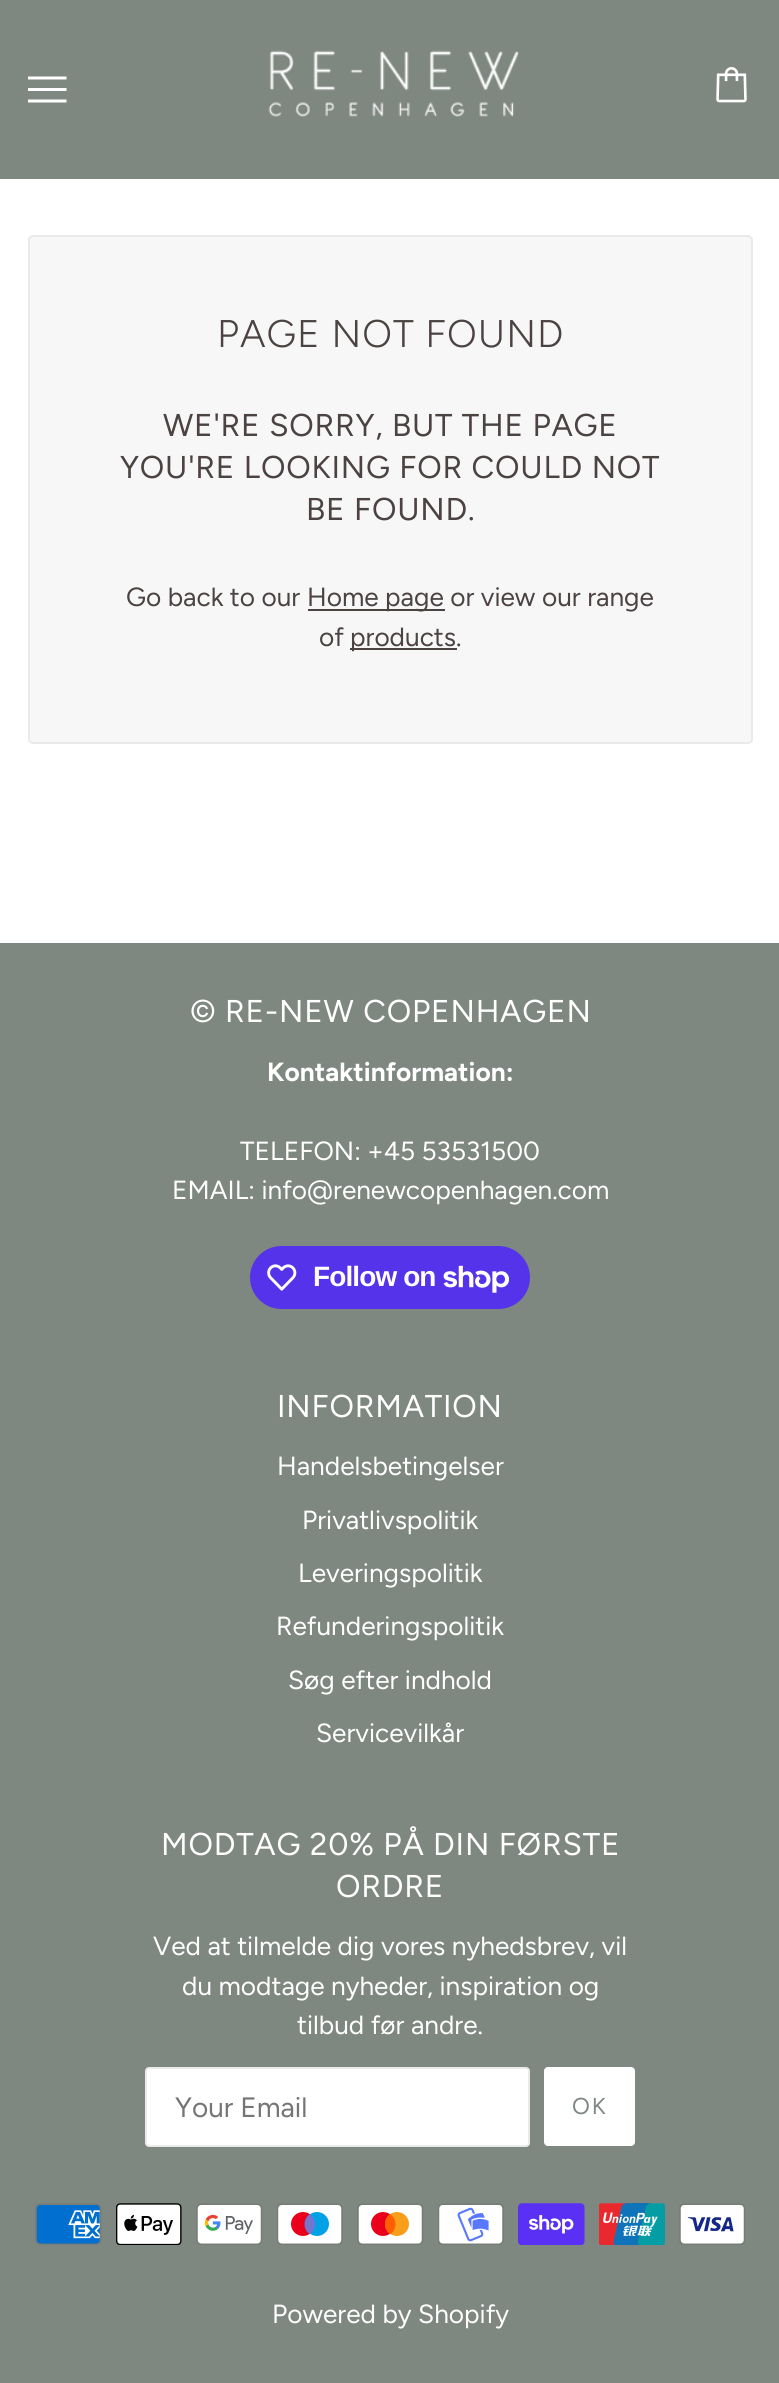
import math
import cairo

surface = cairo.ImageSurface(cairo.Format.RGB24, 779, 2383)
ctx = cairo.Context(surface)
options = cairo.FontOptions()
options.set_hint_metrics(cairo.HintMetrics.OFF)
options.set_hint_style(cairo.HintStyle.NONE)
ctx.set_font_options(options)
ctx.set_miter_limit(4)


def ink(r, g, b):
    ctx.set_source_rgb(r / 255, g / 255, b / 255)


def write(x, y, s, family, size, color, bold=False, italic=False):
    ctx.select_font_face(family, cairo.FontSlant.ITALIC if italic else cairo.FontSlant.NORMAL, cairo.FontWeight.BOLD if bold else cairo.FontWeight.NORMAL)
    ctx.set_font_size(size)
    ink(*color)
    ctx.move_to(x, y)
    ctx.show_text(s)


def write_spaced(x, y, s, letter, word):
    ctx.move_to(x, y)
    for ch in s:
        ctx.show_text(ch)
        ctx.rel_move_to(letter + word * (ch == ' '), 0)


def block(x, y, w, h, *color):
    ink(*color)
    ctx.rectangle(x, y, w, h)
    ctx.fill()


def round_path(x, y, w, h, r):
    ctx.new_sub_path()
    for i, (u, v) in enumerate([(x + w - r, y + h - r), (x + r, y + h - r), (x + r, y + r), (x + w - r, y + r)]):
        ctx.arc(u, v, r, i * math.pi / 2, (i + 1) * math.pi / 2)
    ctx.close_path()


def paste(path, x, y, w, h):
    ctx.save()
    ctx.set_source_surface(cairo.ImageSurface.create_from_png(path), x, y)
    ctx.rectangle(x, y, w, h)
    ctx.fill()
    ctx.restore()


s1 = dict(family="Figtree", size=26.25, color=(75, 66, 66))
s2 = dict(family="Figtree", size=26.25, color=(255, 255, 255), bold=True)
s3 = dict(family="Figtree", size=26.25, color=(255, 255, 255))
s4 = dict(family="Figtree", size=28, color=(117, 117, 117))

ink(255, 255, 255)
ctx.paint()
block(0, 0, 779, 179, 127, 135, 129)
ink(255, 255, 255)
ctx.new_path()
ctx.move_to(28, 79.5)
ctx.line_to(28, 76.5)
ctx.line_to(66.5, 76.5)
ctx.line_to(66.5, 79.5)
ctx.close_path()
ctx.move_to(28, 91)
ctx.line_to(28, 88)
ctx.line_to(66.5, 88)
ctx.line_to(66.5, 91)
ctx.close_path()
ctx.move_to(28, 102.5)
ctx.line_to(28, 99.5)
ctx.line_to(66.5, 99.5)
ctx.line_to(66.5, 102.5)
ctx.close_path()
ctx.fill()
paste("pic1.png", 268, 50, 251, 67)
paste("pic2.png", 716, 67, 31, 36)
ink(247, 247, 247)
round_path(29, 236, 723, 507, 4)
ctx.fill_preserve()
ink(234, 234, 234)
ctx.stroke()
ctx.select_font_face("Figtree Light")
ctx.set_font_size(38.5)
ink(75, 66, 66)
write_spaced(217, 347, "PAGE NOT FOUND", 1, 0)
ctx.select_font_face("Figtree")
ctx.set_font_size(31.5)
write_spaced(163, 436, "WE'RE SORRY, BUT THE PAGE", 0.8, 0)
write_spaced(120, 478, "YOU'RE LOOKING FOR COULD NOT", 0.8, 0)
write_spaced(306, 520, "BE FOUND.", 0.8, 0)
write(126, 606, "Go back to our", **s1)
block(308, 609, 137, 2, 75, 66, 66)
write(307, 606, "Home page or view our range", **s1)
write(319, 646, "of", **s1)
block(350, 648, 107, 2, 75, 66, 66)
write(350, 646, "products.", **s1)
block(0, 943, 779, 1440, 127, 135, 129)
ctx.set_font_size(31.5)
ink(255, 255, 255)
write_spaced(190, 1022, "© RE-NEW COPENHAGEN", 0.8, 0)
write(267, 1081, "Kontaktinformation:", **s2)
write(240, 1160, "TELEFON: +45 53531500", **s3)
write(172, 1199, "EMAIL: info@renewcopenhagen.com", **s3)
ink(84, 51, 235)
round_path(250, 1246, 280, 63, 31.5)
ctx.fill()
paste("pic3.png", 267, 1264, 30, 27)
ctx.select_font_face("Liberation Sans", cairo.FontSlant.NORMAL, cairo.FontWeight.BOLD)
ctx.set_font_size(28)
ink(255, 255, 255)
write_spaced(313, 1286, "Follow on", -0.9, 0)
paste("pic4.png", 443, 1265, 66, 28)
ctx.select_font_face("Figtree")
ctx.set_font_size(31.5)
write_spaced(277, 1417, "INFORMATION", 0.8, 0)
write(277, 1475, "Handelsbetingelser", **s3)
write(302, 1529, "Privatlivspolitik", **s3)
write(298, 1582, "Leveringspolitik", **s3)
write(276, 1635, "Refunderingspolitik", **s3)
write(288, 1689, "Søg efter indhold", **s3)
write(316, 1742, "Servicevilkår", **s3)
ctx.set_font_size(31.5)
write_spaced(161, 1855, "MODTAG 20% PÅ DIN FØRSTE", 0.8, 0)
write_spaced(336, 1897, "ORDRE", 0.8, 0)
write(153, 1955, "Ved at tilmelde dig vores nyhedsbrev, vil", **s3)
write(182, 1995, "du modtage nyheder, inspiration og", **s3)
write(297, 2034, "tilbud før andre.", **s3)
round_path(146, 2068, 383, 78, 3)
ctx.fill_preserve()
ink(234, 234, 234)
ctx.stroke()
write(175, 2117, "Your Email", **s4)
ink(255, 255, 255)
round_path(544, 2067, 91, 79, 4)
ctx.fill()
ctx.set_font_size(23)
ink(127, 135, 129)
write_spaced(572, 2114, "OK", 2, 0)
paste("pic5.png", 35, 2203, 67, 42)
paste("pic6.png", 116, 2203, 66, 42)
paste("pic7.png", 196, 2203, 67, 42)
paste("pic8.png", 277, 2203, 66, 42)
paste("pic9.png", 357, 2203, 67, 42)
paste("pic10.png", 438, 2203, 66, 42)
paste("pic11.png", 518, 2203, 67, 42)
paste("pic12.png", 599, 2203, 66, 42)
paste("pic13.png", 679, 2203, 67, 42)
write(272, 2323, "Powered by Shopify", **s3)
surface.write_to_png("screenshot.png")
